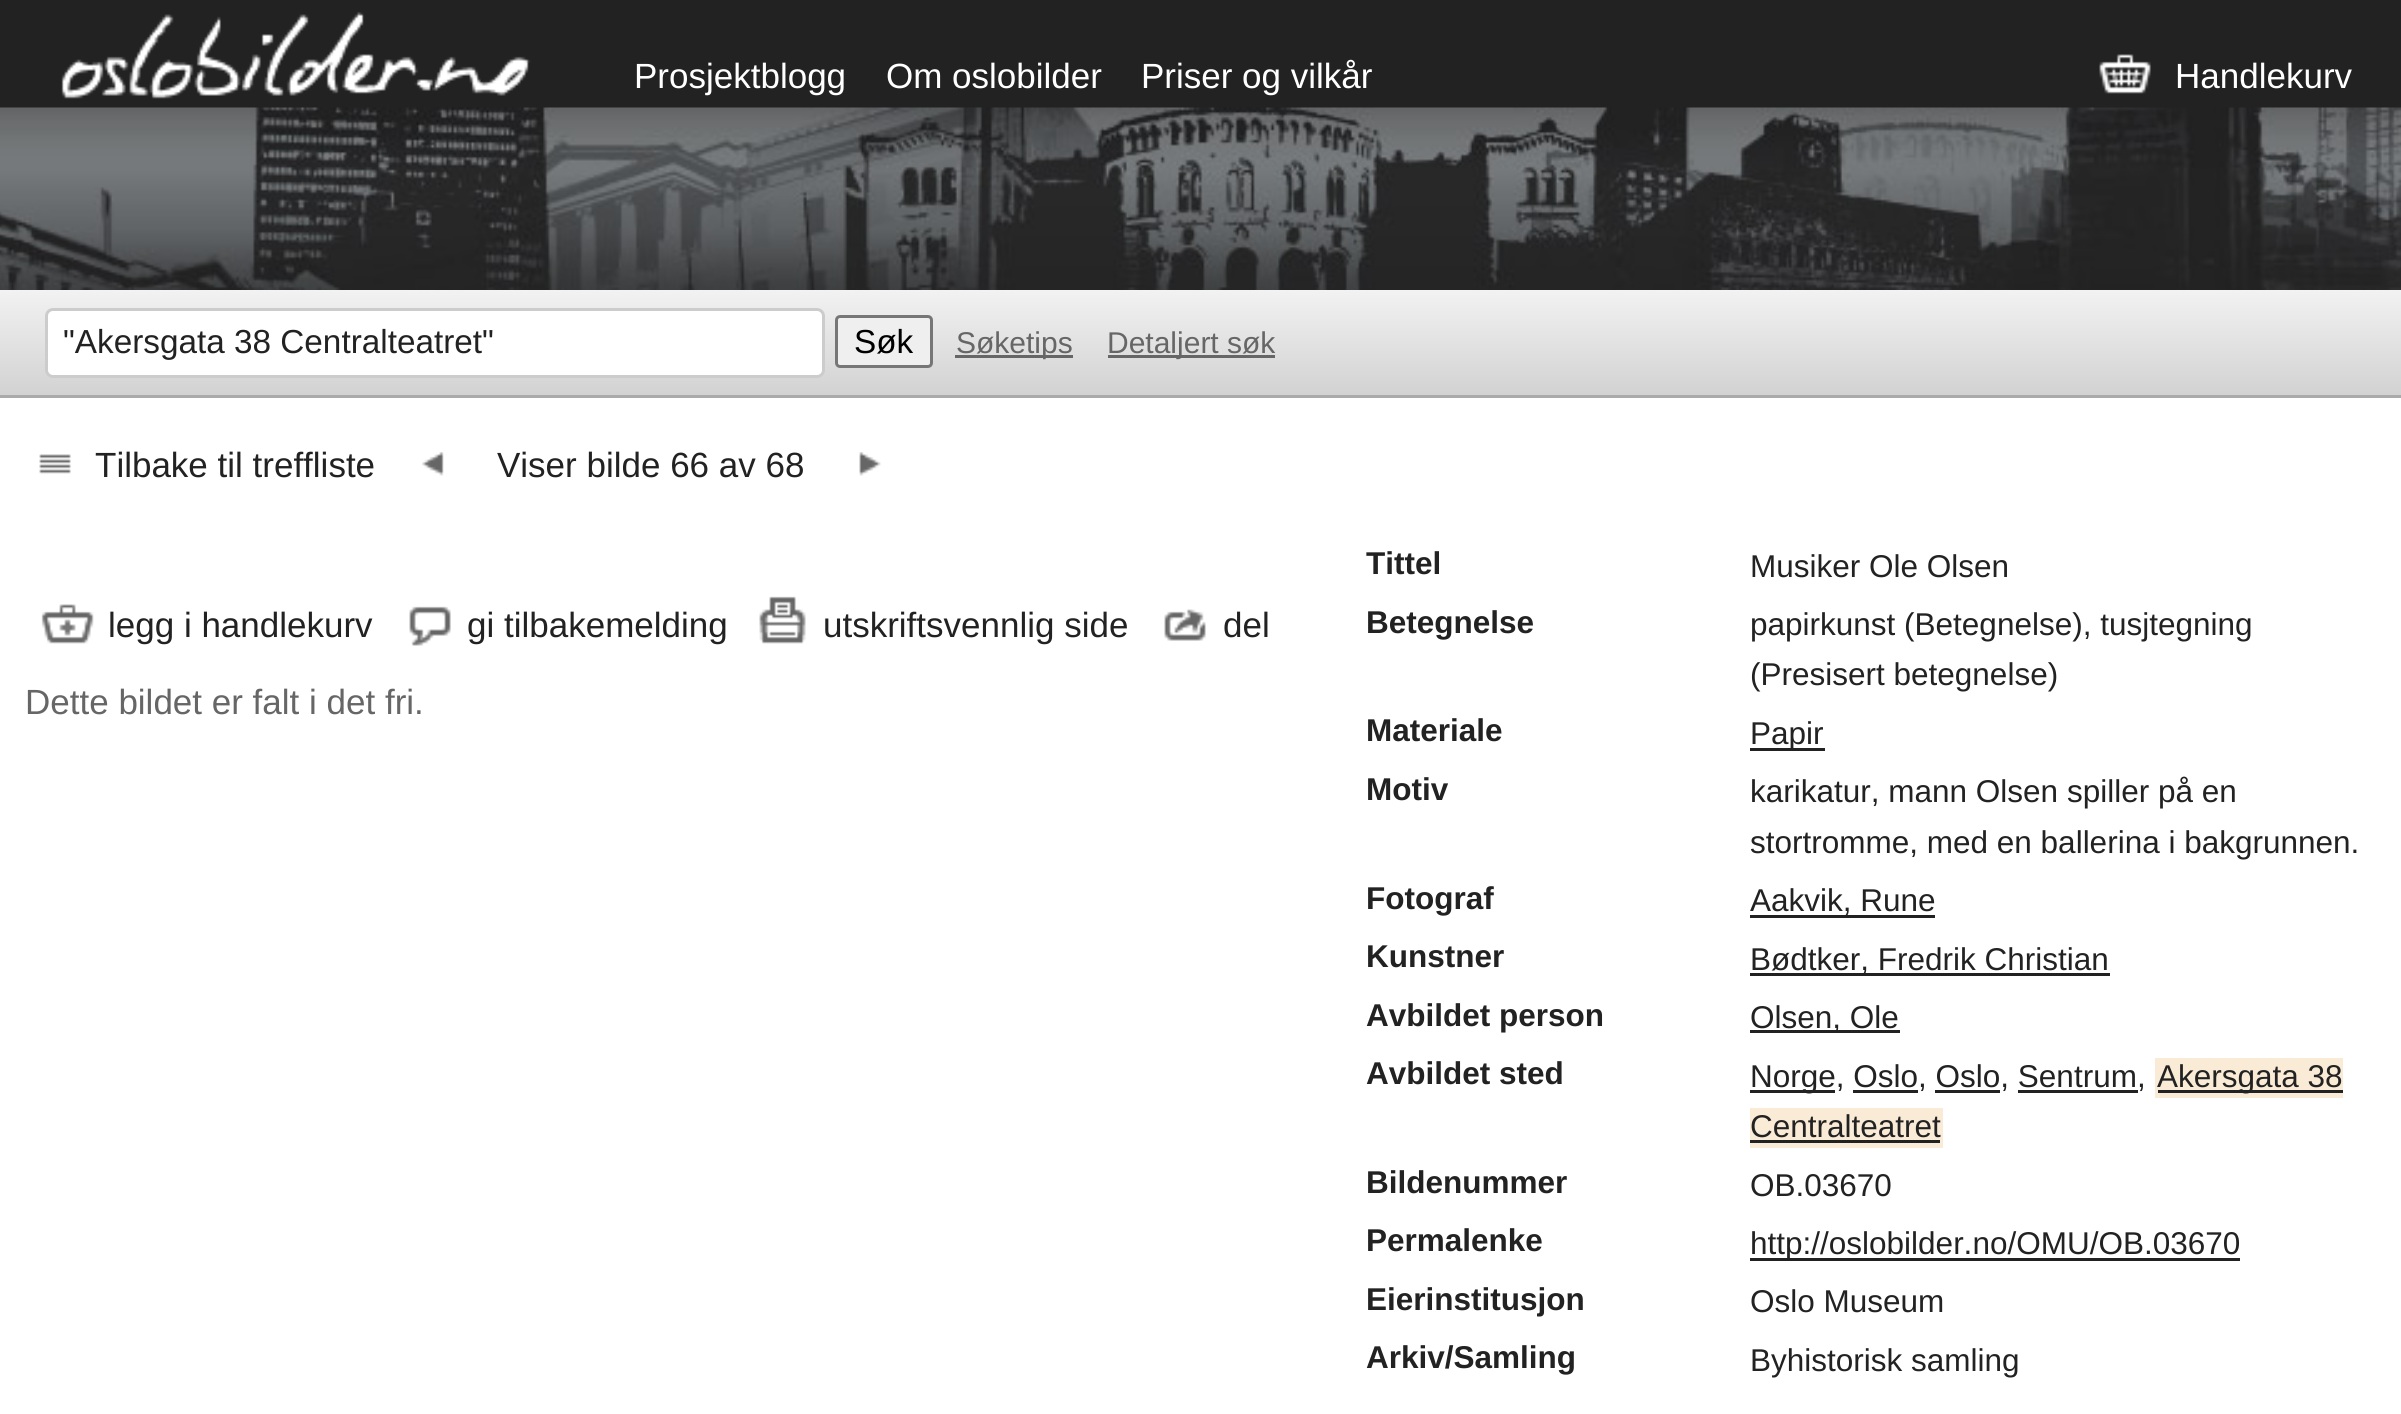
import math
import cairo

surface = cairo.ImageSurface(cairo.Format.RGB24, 2401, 1414)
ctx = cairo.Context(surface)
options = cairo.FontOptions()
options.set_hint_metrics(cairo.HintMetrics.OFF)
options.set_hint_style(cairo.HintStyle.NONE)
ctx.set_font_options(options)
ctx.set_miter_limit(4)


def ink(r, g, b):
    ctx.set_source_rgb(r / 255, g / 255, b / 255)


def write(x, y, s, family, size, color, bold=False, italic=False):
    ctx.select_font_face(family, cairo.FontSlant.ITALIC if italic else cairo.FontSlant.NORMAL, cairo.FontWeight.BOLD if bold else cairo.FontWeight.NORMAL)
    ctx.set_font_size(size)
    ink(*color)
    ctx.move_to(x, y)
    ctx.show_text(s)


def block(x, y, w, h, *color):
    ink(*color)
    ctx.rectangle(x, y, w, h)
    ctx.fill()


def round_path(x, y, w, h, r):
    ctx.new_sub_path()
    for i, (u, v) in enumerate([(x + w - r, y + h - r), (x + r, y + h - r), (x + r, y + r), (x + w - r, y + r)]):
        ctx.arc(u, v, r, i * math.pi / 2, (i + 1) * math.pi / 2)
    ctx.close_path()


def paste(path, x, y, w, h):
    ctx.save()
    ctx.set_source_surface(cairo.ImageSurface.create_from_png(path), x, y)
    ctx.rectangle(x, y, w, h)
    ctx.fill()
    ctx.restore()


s1 = dict(family="Liberation Sans", size=35, color=(255, 255, 255))
s2 = dict(family="Liberation Sans", size=33.3, color=(34, 34, 34))
s3 = dict(family="Liberation Sans", size=33.3, color=(0, 0, 0))
s4 = dict(family="Liberation Sans", size=30, color=(102, 102, 102))
s5 = dict(family="Liberation Sans", size=35, color=(34, 34, 34))
s6 = dict(family="Liberation Sans", size=35, color=(102, 102, 102))
s7 = dict(family="Liberation Sans", size=31.5, color=(34, 34, 34), bold=True)
s8 = dict(family="Liberation Sans", size=31.5, color=(34, 34, 34))

ink(255, 255, 255)
ctx.paint()
block(0, 0, 2401, 108, 34, 34, 34)
paste("pic1.png", 0, 107, 2401, 183)
paste("pic2.png", 61, 12, 470, 87)
write(634, 88, "Prosjektblogg", **s1)
write(886, 88, "Om oslobilder", **s1)
write(1141, 88, "Priser og vilkår", **s1)
paste("pic3.png", 2099, 54, 52, 40)
write(2175, 88, "Handlekurv", **s1)
gradient = cairo.LinearGradient(1201, 290, 1201, 395)
gradient.add_color_stop_rgba(0, 0.949, 0.949, 0.949, 1)
gradient.add_color_stop_rgba(1, 0.824, 0.824, 0.824, 1)
ctx.set_source(gradient)
ctx.rectangle(0, 290, 2401, 105)
ctx.fill()
block(0, 395, 2401, 3, 170, 170, 170)
ink(255, 255, 255)
round_path(46.5, 309.5, 777, 67, 6.5)
ctx.fill_preserve()
ink(204, 204, 204)
ctx.set_line_width(3)
ctx.stroke()
write(63, 353, "\"Akersgata 38 Centralteatret\"", **s2)
ink(239, 239, 239)
round_path(836.5, 316.5, 95, 50, 3.5)
ctx.fill_preserve()
ink(118, 118, 118)
ctx.stroke()
write(854, 353, "Søk", **s3)
block(955, 355, 118, 3, 102, 102, 102)
write(956, 353, "Søketips", **s4)
block(1108, 355, 167, 3, 102, 102, 102)
write(1107, 353, "Detaljert søk", **s4)
paste("pic4.png", 39, 454, 32, 20)
write(95, 477, "Tilbake til treffliste", **s5)
paste("pic5.png", 422, 452, 22, 24)
write(497, 477, "Viser bilde 66 av 68", **s5)
paste("pic6.png", 859, 452, 22, 24)
paste("pic7.png", 41, 604, 53, 40)
write(108, 637, "legg i handlekurv", **s5)
paste("pic8.png", 409, 606, 42, 40)
write(467, 637, "gi tilbakemelding", **s5)
paste("pic9.png", 759, 596, 47, 48)
write(823, 637, "utskriftsvennlig side", **s5)
paste("pic10.png", 1164, 609, 42, 32)
write(1223, 637, "del", **s5)
write(25, 714, "Dette bildet er falt i det fri.", **s6)
write(1366, 574, "Tittel", **s7)
write(1750, 577, "Musiker Ole Olsen", **s8)
write(1366, 633, "Betegnelse", **s7)
write(1750, 635, "papirkunst (Betegnelse), tusjtegning", **s8)
write(1750, 685, "(Presisert betegnelse)", **s8)
write(1366, 741, "Materiale", **s7)
block(1750, 748, 75, 3, 34, 34, 34)
write(1750, 744, "Papir", **s8)
write(1366, 800, "Motiv", **s7)
write(1750, 802, "karikatur, mann Olsen spiller på en", **s8)
write(1750, 853, "stortromme, med en ballerina i bakgrunnen.", **s8)
write(1366, 909, "Fotograf", **s7)
write(1750, 911, "Aakvik, Rune", **s8)
block(1750, 915, 185, 3, 34, 34, 34)
write(1366, 967, "Kunstner", **s7)
block(1750, 973, 360, 3, 34, 34, 34)
write(1750, 970, "Bødtker, Fredrik Christian", **s8)
write(1366, 1026, "Avbildet person", **s7)
block(1750, 1030, 150, 3, 34, 34, 34)
write(1750, 1028, "Olsen, Ole", **s8)
write(1366, 1084, "Avbildet sted", **s7)
block(1750, 1090, 85, 3, 34, 34, 34)
write(1750, 1087, "Norge, Oslo, Oslo, Sentrum,", **s8)
block(2155, 1058, 188, 40, 250, 235, 215)
block(2158, 1090, 185, 3, 34, 34, 34)
write(2157, 1087, "Akersgata 38", **s8)
block(1853, 1090, 65, 3, 34, 34, 34)
block(1935, 1090, 65, 3, 34, 34, 34)
block(2018, 1090, 120, 3, 34, 34, 34)
block(1750, 1108, 193, 40, 250, 235, 215)
write(1750, 1137, "Centralteatret", **s8)
block(1750, 1140, 190, 3, 34, 34, 34)
write(1366, 1193, "Bildenummer", **s7)
write(1750, 1196, "OB.03670", **s8)
write(1366, 1251, "Permalenke", **s7)
block(1750, 1258, 490, 3, 34, 34, 34)
write(1750, 1254, "http://oslobilder.no/OMU/OB.03670", **s8)
write(1366, 1310, "Eierinstitusjon", **s7)
write(1750, 1312, "Oslo Museum", **s8)
write(1366, 1368, "Arkiv/Samling", **s7)
write(1750, 1371, "Byhistorisk samling", **s8)
surface.write_to_png("screenshot.png")
